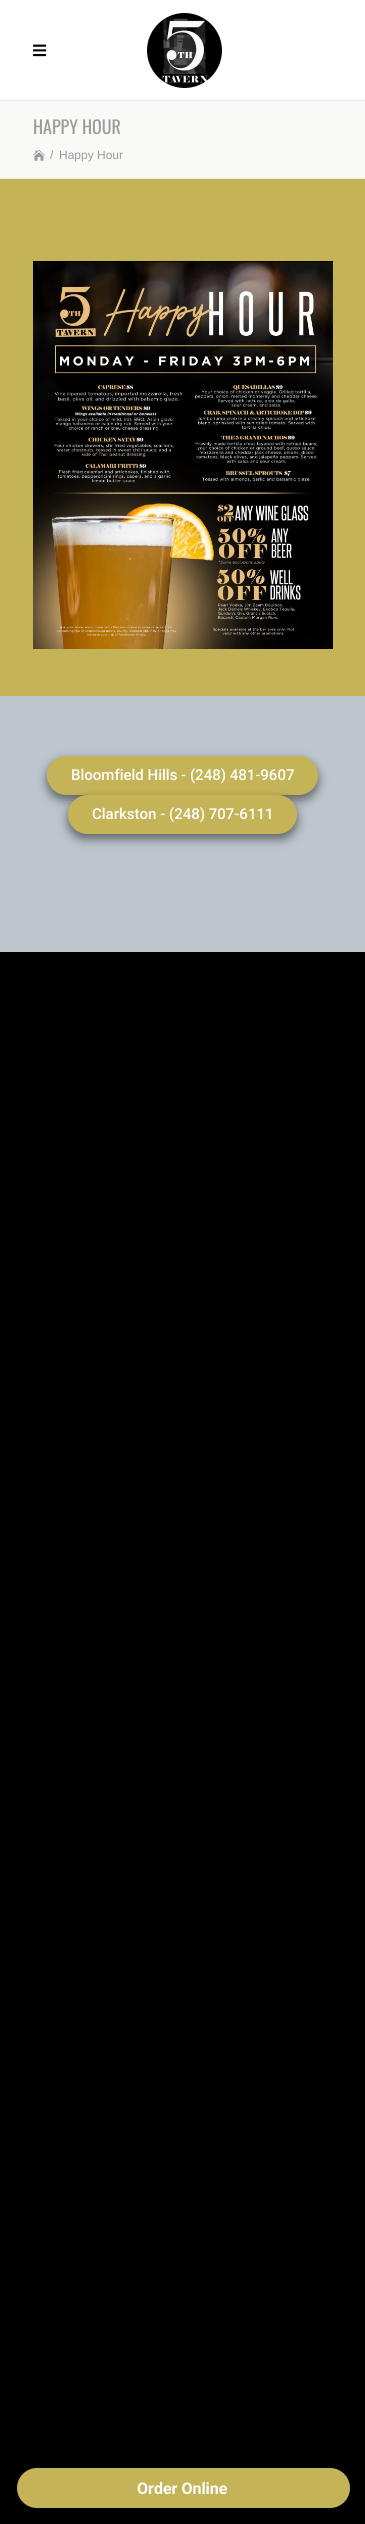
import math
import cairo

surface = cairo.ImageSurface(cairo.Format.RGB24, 365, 2524)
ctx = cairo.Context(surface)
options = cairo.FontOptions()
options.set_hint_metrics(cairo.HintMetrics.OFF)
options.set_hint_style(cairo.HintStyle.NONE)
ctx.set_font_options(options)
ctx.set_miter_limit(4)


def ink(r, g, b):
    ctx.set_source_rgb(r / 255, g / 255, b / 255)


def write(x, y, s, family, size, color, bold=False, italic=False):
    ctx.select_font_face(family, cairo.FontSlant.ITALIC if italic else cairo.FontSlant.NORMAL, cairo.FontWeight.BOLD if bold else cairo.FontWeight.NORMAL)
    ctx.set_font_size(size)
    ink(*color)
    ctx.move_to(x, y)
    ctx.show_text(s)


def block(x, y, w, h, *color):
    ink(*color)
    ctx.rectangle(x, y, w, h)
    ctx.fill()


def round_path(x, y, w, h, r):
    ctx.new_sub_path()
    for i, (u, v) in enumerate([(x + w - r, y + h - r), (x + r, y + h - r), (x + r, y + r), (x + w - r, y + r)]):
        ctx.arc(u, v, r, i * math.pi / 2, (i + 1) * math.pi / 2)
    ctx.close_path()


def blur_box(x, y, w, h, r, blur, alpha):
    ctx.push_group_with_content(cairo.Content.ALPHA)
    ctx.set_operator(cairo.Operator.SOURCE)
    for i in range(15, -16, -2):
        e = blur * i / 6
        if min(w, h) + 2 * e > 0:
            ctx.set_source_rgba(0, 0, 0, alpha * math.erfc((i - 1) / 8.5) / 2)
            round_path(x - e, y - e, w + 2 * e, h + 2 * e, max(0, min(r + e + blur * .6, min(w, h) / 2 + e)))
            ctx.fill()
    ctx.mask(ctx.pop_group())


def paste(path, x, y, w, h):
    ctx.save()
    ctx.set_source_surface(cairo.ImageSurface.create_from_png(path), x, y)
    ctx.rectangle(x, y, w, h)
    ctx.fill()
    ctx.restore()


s1 = dict(family="Oswald", size=18, color=(155, 155, 155))
s2 = dict(family="Liberation Sans", size=12, color=(155, 155, 155))
s3 = dict(family="Roboto Medium", size=15, color=(255, 255, 255))
s4 = dict(family="Roboto", size=16, color=(255, 255, 255), bold=True)

ink(0, 0, 0)
ctx.paint()
block(0, 696, 365, 256, 188, 198, 204)
block(0, 100, 365, 1, 233, 233, 232)
block(0, 0, 365, 100, 255, 255, 255)
paste("pic1.png", 33, 44, 14, 13)
paste("pic2.png", 147, 13, 75, 75)
block(0, 101, 365, 77, 249, 249, 248)
block(0, 178, 365, 1, 233, 233, 232)
write(33, 134, "HAPPY HOUR", **s1)
paste("pic3.png", 33, 150, 12, 11)
write(50, 159, "/", **s2)
write(59, 159, "Happy Hour", **s2)
block(0, 179, 365, 517, 197, 179, 88)
paste("pic4.png", 33, 261, 300, 388)
ink(0, 0, 0)
blur_box(47, 761, 271, 39, 19.5, 5, 0.5)
ink(197, 179, 87)
round_path(47, 756, 271, 39, 19.5)
ctx.fill()
write(71, 780, "Bloomfield Hills - (248) 481-9607", **s3)
ink(0, 0, 0)
blur_box(68, 800, 229, 39, 19.5, 5, 0.5)
ink(197, 179, 87)
round_path(68, 795, 229, 39, 19.5)
ctx.fill()
write(92, 819, "Clarkston - (248) 707-6111", **s3)
ink(197, 179, 87)
round_path(17, 2468, 333, 40, 20)
ctx.fill()
write(137, 2494, "Order Online", **s4)
surface.write_to_png("screenshot.png")
